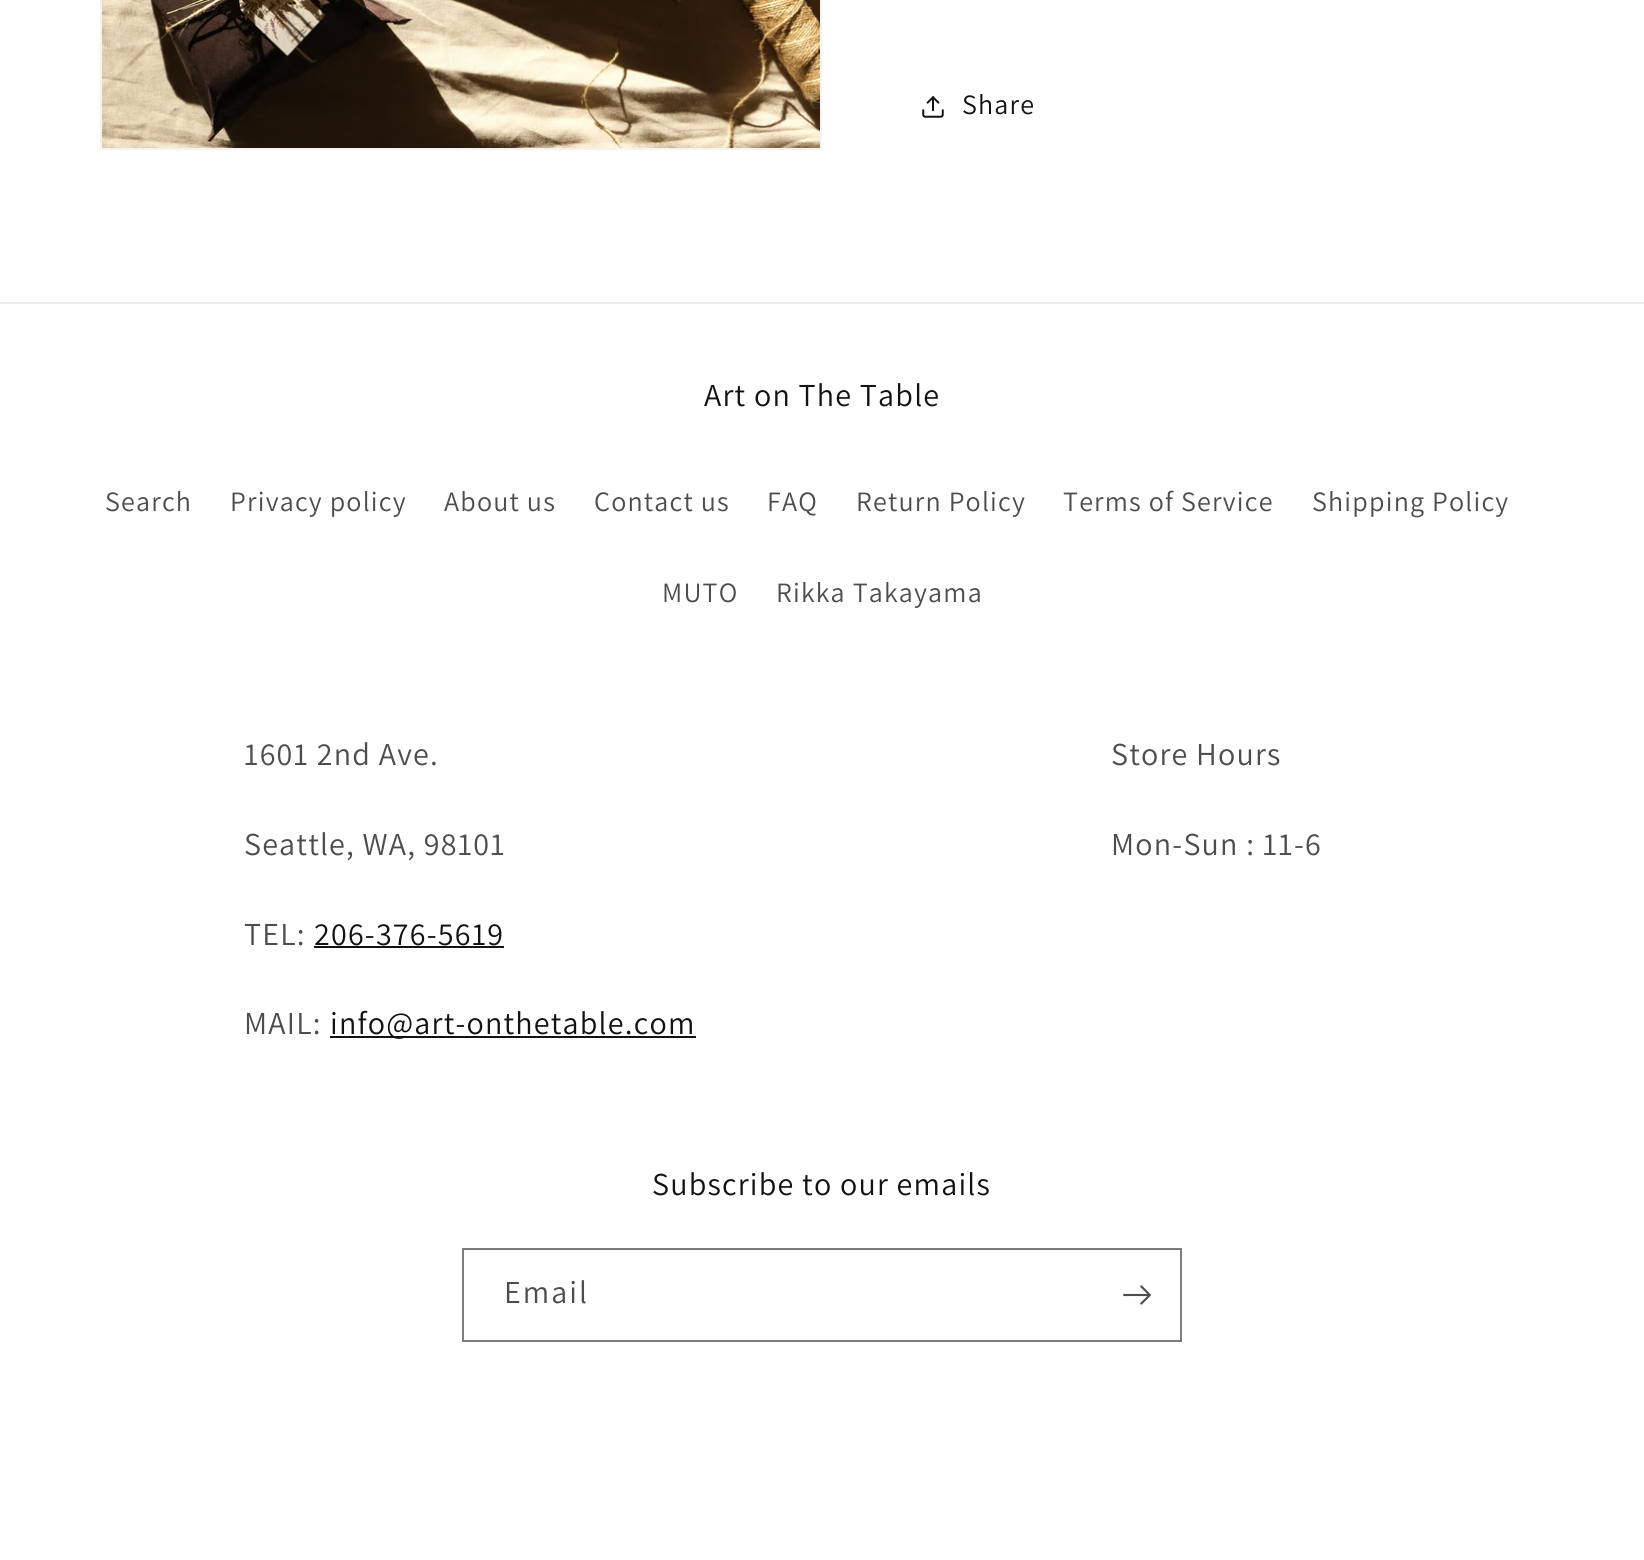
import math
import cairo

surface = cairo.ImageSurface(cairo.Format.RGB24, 1644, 1560)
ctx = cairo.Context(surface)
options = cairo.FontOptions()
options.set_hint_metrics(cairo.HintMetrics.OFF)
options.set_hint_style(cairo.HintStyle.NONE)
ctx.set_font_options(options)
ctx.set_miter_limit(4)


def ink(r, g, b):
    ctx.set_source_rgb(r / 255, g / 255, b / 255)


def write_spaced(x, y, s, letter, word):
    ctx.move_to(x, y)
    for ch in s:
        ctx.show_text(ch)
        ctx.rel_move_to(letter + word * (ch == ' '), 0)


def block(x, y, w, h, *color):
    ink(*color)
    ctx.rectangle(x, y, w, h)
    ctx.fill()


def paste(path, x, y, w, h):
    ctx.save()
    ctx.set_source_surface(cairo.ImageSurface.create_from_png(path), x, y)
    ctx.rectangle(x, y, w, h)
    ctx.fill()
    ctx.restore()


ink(255, 255, 255)
ctx.paint()
ctx.rectangle(101, -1, 720, 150)
ink(243, 243, 243)
ctx.stroke()
paste("pic1.png", 102, 0, 718, 148)
paste("pic2.png", 922, 96, 22, 22)
ctx.select_font_face("Assistant")
ctx.set_font_size(28)
ink(18, 18, 18)
write_spaced(962, 114, "Share", 1.2, 0)
block(0, 302, 1644, 2, 236, 236, 236)
ctx.set_font_size(32)
ink(18, 18, 18)
write_spaced(704, 406, "Art on The Table", 1.2, 0)
ctx.set_font_size(28)
ink(77, 77, 77)
write_spaced(105, 511, "Search", 1.2, 0)
write_spaced(230, 511, "Privacy policy", 1.2, 0)
write_spaced(444, 511, "About us", 1.2, 0)
write_spaced(594, 511, "Contact us", 1.2, 0)
write_spaced(767, 511, "FAQ", 1.2, 0)
write_spaced(856, 511, "Return Policy", 1.2, 0)
write_spaced(1063, 511, "Terms of Service", 1.2, 0)
write_spaced(1312, 511, "Shipping Policy", 1.2, 0)
write_spaced(662, 602, "MUTO", 1.2, 0)
write_spaced(776, 602, "Rikka Takayama", 1.2, 0)
ctx.set_font_size(32)
write_spaced(244, 765, "1601 2nd Ave.", 1.2, 0)
write_spaced(244, 855, "Seattle, WA, 98101", 1.2, 0)
write_spaced(244, 945, "TEL:", 1.2, 0)
ink(18, 18, 18)
write_spaced(314, 945, "206-376-5619", 1.2, 0)
block(314, 946, 190, 2, 18, 18, 18)
ink(77, 77, 77)
write_spaced(244, 1034, "MAIL:", 1.2, 0)
block(330, 1036, 366, 2, 18, 18, 18)
write_spaced(330, 1034, "info@art-onthetable.com", 1.2, 0)
ink(77, 77, 77)
write_spaced(1111, 765, "Store Hours", 1.2, 0)
write_spaced(1111, 855, "Mon-Sun : 11-6", 1.2, 0)
ink(18, 18, 18)
write_spaced(652, 1195, "Subscribe to our emails", 1.2, 0)
ctx.rectangle(463, 1249, 718, 92)
ink(125, 125, 125)
ctx.stroke()
ink(77, 77, 77)
write_spaced(504, 1303, "Email", 2, 0)
paste("pic3.png", 1123, 1285, 28, 20)
surface.write_to_png("screenshot.png")
